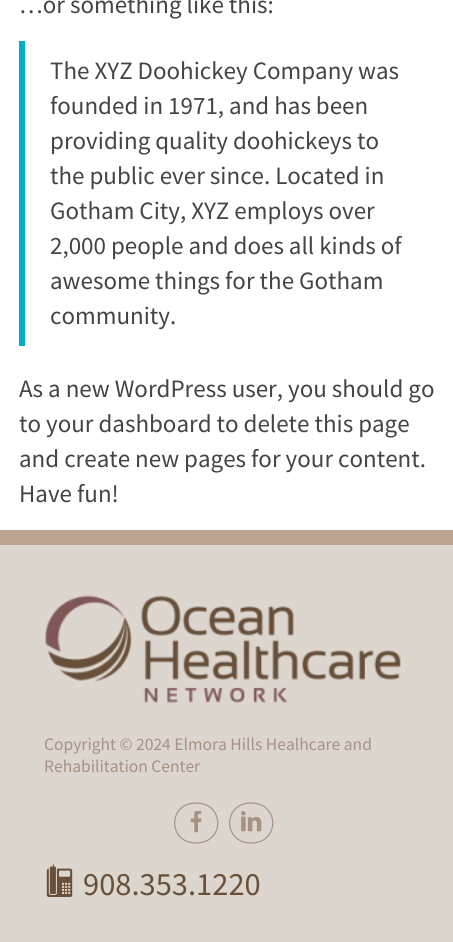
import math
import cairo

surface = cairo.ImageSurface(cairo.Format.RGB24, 453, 942)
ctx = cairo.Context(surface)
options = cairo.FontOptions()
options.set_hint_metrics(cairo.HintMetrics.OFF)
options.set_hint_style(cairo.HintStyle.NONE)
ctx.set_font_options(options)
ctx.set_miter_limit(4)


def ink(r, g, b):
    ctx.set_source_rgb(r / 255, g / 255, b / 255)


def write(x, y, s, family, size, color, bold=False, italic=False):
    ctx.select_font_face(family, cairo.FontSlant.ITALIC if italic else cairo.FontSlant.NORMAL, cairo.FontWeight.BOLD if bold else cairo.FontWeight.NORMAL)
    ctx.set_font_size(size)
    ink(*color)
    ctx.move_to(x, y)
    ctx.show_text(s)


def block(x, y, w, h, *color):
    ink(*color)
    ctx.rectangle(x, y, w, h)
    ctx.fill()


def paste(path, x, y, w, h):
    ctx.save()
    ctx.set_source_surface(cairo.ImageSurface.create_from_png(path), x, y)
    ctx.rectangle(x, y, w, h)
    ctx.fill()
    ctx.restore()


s1 = dict(family="Source Sans Pro", size=25, color=(68, 68, 68))
s2 = dict(family="Source Sans Pro", size=17.5, color=(167, 145, 130))
s3 = dict(family="Source Sans Pro", size=32.5, color=(105, 80, 58))

ink(255, 255, 255)
ctx.paint()
write(19, 13, "…or something like this:", **s1)
block(19, 41, 6, 305, 2, 173, 198)
write(50, 79, "The XYZ Doohickey Company was", **s1)
write(50, 114, "founded in 1971, and has been", **s1)
write(50, 149, "providing quality doohickeys to", **s1)
write(50, 184, "the public ever since. Located in", **s1)
write(50, 219, "Gotham City, XYZ employs over", **s1)
write(50, 254, "2,000 people and does all kinds of", **s1)
write(50, 289, "awesome things for the Gotham", **s1)
write(50, 324, "community.", **s1)
write(19, 397, "As a new WordPress user, you should go", **s1)
write(19, 432, "to your dashboard to delete this page", **s1)
write(19, 467, "and create new pages for your content.", **s1)
write(19, 502, "Have fun!", **s1)
block(0, 545, 453, 397, 221, 214, 207)
block(0, 530, 453, 15, 188, 163, 146)
paste("pic1.png", 45, 595, 356, 108)
write(44, 750, "Copyright © 2024 Elmora Hills Healhcare and", **s2)
write(44, 772, "Rehabilitation Center", **s2)
ctx.new_path()
ctx.move_to(196, 803)
ctx.curve_to(225, 803, 225, 843, 196, 843)
ctx.curve_to(167.5, 843, 167.5, 803, 196, 803)
ctx.close_path()
ctx.set_line_width(1.2)
ctx.stroke()
ctx.new_path()
ctx.move_to(251, 803)
ctx.curve_to(280, 803, 280, 843, 251, 843)
ctx.curve_to(222.5, 843, 222.5, 803, 251, 803)
ctx.close_path()
ctx.stroke()
paste("pic2.png", 190, 811, 12, 22)
paste("pic3.png", 241, 811, 21, 21)
paste("pic4.png", 46, 864, 27, 33)
write(83, 895, "908.353.1220", **s3)
surface.write_to_png("screenshot.png")
